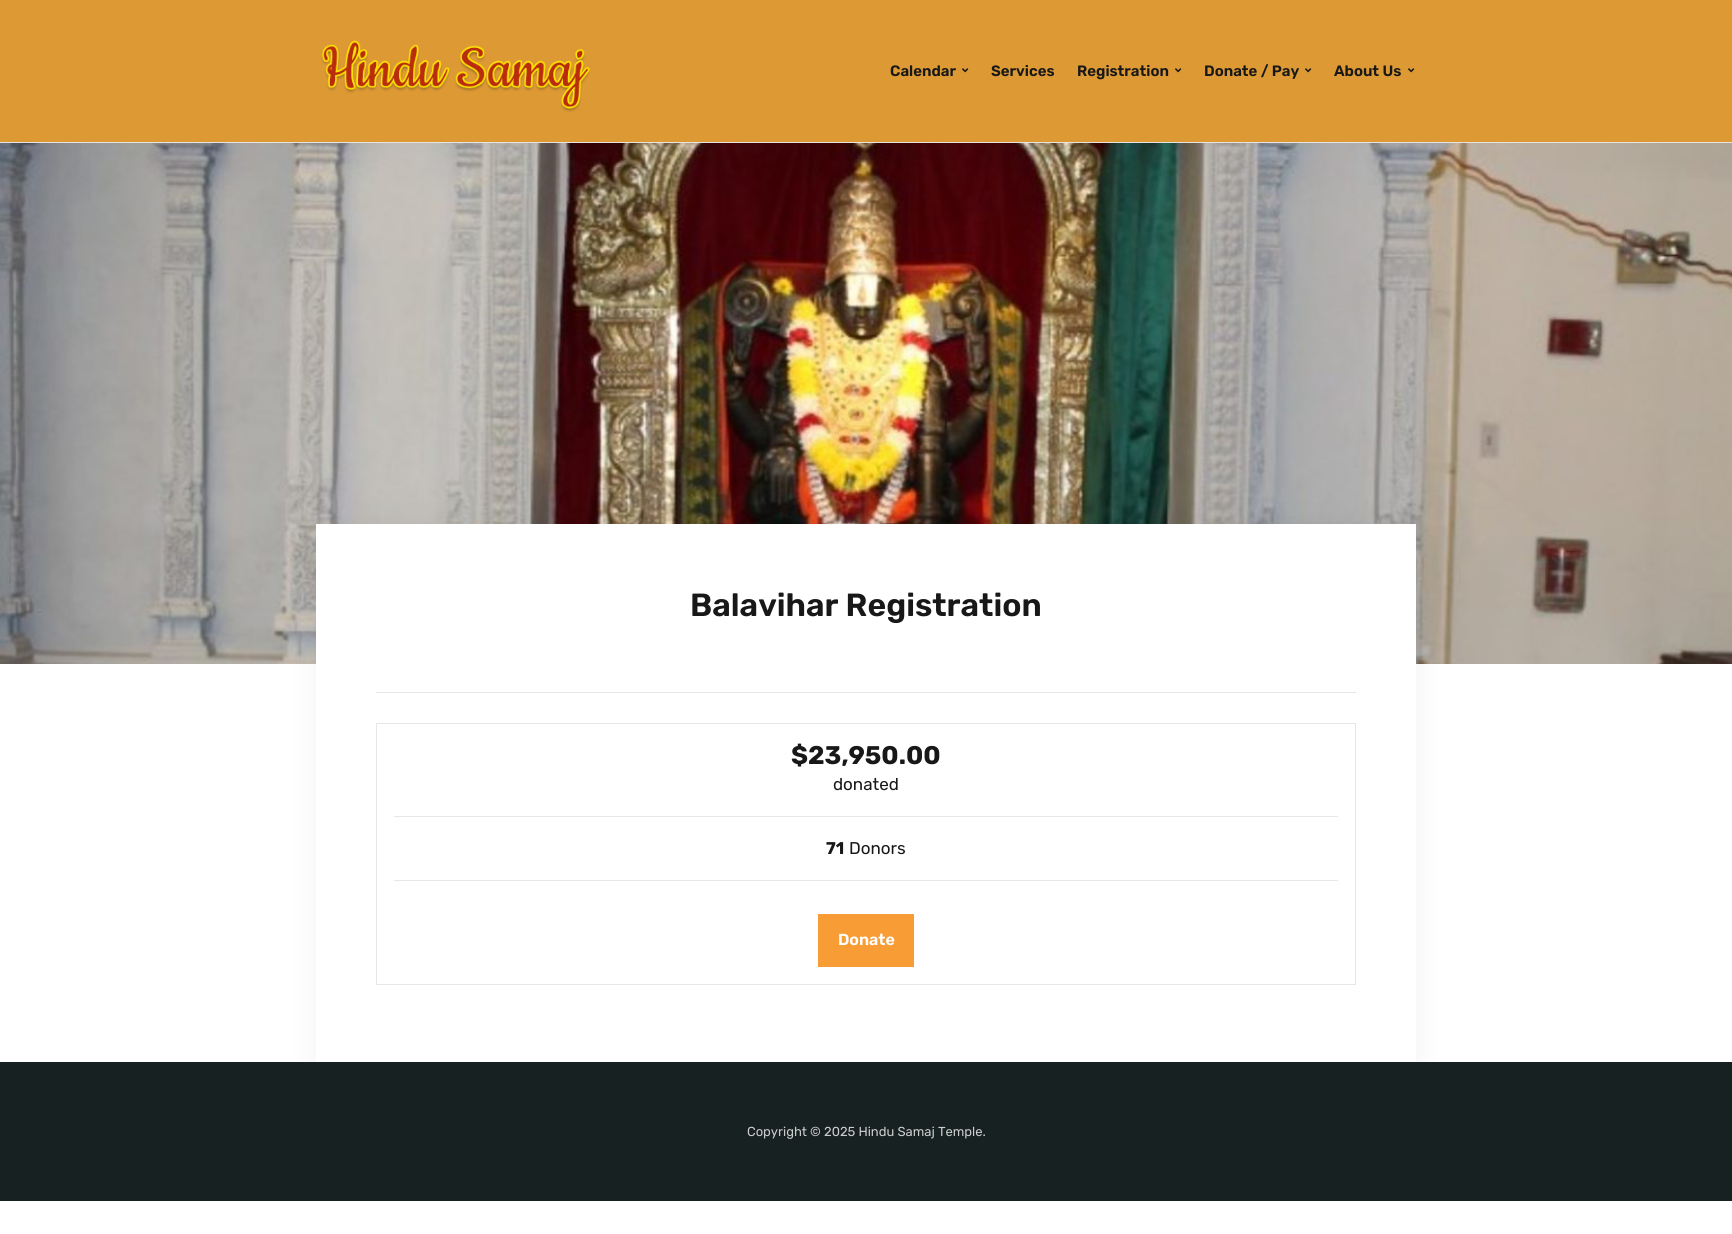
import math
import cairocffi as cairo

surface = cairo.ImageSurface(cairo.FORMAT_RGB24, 1732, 1234)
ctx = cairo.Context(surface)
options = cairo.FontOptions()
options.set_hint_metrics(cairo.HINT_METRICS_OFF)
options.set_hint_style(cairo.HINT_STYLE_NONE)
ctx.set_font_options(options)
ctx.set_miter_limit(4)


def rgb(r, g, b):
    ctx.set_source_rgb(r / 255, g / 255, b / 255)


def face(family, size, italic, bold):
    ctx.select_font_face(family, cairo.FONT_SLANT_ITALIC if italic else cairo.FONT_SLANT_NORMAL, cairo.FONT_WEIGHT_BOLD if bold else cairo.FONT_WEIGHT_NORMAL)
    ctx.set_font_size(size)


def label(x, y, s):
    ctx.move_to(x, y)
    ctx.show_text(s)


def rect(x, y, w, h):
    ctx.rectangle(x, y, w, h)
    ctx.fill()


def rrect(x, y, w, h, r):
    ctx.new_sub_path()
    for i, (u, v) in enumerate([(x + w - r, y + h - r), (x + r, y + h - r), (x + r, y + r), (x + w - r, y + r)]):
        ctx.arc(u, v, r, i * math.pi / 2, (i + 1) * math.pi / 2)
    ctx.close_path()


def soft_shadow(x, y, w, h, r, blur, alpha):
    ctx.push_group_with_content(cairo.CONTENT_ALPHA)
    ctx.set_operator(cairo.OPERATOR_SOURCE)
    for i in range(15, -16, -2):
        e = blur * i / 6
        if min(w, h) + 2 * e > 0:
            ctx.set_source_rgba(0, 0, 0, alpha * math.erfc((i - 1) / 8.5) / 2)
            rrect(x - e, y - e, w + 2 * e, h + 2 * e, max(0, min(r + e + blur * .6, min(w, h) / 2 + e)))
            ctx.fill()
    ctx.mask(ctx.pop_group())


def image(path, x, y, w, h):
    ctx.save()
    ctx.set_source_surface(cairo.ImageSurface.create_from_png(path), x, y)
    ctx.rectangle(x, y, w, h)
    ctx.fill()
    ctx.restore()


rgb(255, 255, 255)
ctx.paint()
rgb(221, 153, 52)
rect(0, 0, 1732, 142)
rgb(231, 227, 224)
rect(0, 142, 1732, 1)
image('image0.png', 321, 40, 269, 72)
face('Rubik SemiBold', 15, 0, 0)
rgb(24, 24, 24)
label(890, 76, 'Calendar')
image('image1.png', 962, 68, 7, 5)
label(991, 76, 'Services')
label(1077, 76, 'Registration')
image('image1.png', 1175, 68, 7, 5)
label(1204, 76, 'Donate / Pay')
image('image1.png', 1305, 68, 7, 5)
label(1334, 76, 'About Us')
image('image1.png', 1408, 68, 7, 5)
image('image2.png', 0, 143, 1732, 521)
rgb(0, 0, 0)
soft_shadow(316, 524, 1100, 538, 0, 15, 0.06)
rgb(255, 255, 255)
rect(316, 524, 1100, 538)
rgb(230, 230, 230)
rect(376, 692, 980, 1)
face('Rubik SemiBold', 32, 0, 0)
rgb(24, 24, 24)
label(690, 616, 'Balavihar Registration')
ctx.rectangle(376.5, 723.5, 979, 261)
rgb(230, 230, 230)
ctx.set_line_width(1)
ctx.stroke()
rect(394, 816, 944, 1)
face('Rubik', 25.5, 0, 1)
rgb(24, 24, 24)
label(791, 764, '$23,950.00')
face('Rubik', 17, 0, 0)
label(833, 790, 'donated')
rgb(230, 230, 230)
rect(394, 880, 944, 1)
face('Rubik', 17, 0, 1)
rgb(24, 24, 24)
label(826, 854, '71')
face('Rubik', 17, 0, 0)
label(849, 854, 'Donors')
rgb(248, 157, 53)
rect(818, 914, 96, 53)
face('Rubik SemiBold', 16, 0, 0)
rgb(255, 255, 255)
label(838, 945, 'Donate')
rgb(24, 33, 34)
rect(0, 1062, 1732, 139)
face('Rubik', 13, 0, 0)
rgb(204, 204, 204)
label(747, 1136, 'Copyright © 2025 Hindu Samaj Temple.')
surface.write_to_png('render.png')
